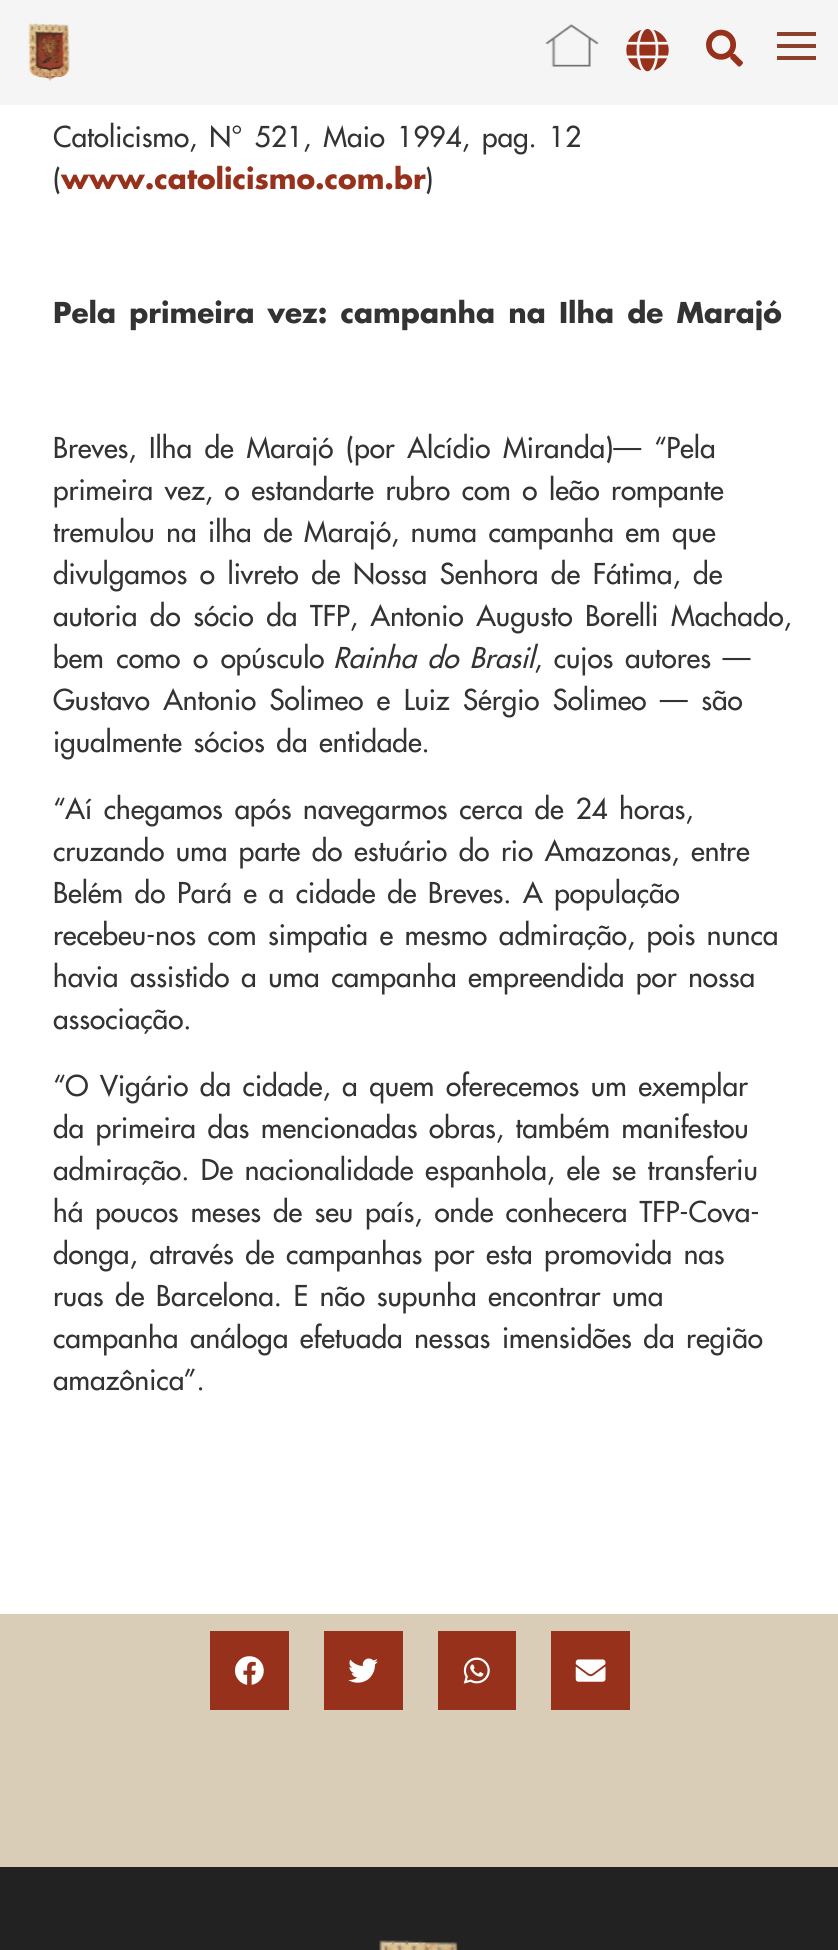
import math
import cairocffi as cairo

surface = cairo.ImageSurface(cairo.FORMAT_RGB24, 838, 1950)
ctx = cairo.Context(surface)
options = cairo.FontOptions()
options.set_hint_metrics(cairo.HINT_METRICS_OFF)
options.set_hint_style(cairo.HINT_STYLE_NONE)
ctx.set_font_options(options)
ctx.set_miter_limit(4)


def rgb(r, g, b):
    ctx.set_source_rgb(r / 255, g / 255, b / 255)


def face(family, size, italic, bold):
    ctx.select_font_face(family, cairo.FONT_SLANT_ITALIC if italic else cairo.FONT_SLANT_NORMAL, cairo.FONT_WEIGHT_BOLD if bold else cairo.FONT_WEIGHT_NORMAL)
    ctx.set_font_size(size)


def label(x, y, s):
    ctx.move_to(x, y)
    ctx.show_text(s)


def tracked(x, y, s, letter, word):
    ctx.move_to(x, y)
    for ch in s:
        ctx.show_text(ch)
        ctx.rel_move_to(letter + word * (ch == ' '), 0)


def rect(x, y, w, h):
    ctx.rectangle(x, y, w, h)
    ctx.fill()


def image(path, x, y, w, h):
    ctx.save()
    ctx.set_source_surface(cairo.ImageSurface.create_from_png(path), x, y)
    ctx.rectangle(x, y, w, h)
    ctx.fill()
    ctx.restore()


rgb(217, 205, 183)
ctx.paint()
rgb(245, 245, 245)
rect(0, 0, 838, 105)
image('image0.png', 28, 23, 42, 58)
image('image1.png', 545, 24, 54, 43)
image('image2.png', 626, 28, 43, 44)
image('image3.png', 706, 29, 37, 38)
rgb(139, 65, 44)
rect(777, 32, 39, 4)
rect(777, 56, 39, 4)
rect(777, 44, 39, 4)
rgb(255, 255, 255)
rect(0, 105, 838, 1509)
face('Futura', 28, 0, 0)
rgb(51, 51, 51)
tracked(53, 147, 'Catolicismo, N° 521, Maio 1994, pag. 12', 0, 4)
label(53, 189, '(')
face('Futura', 28, 0, 1)
rgb(151, 49, 27)
label(61, 189, 'www.catolicismo.com.br')
face('Futura', 28, 0, 0)
rgb(51, 51, 51)
label(425, 189, ')')
face('Futura', 28, 0, 1)
tracked(53, 323, 'Pela primeira vez: campanha na Ilha de Marajó', 0, 3.5)
face('Futura', 28, 0, 0)
tracked(53, 458, 'Breves, Ilha de Marajó (por Alcídio Miranda)— “Pela', 0, 4.5)
tracked(53, 500, 'primeira vez, o estandarte rubro com o leão rompante', 0, 3.5)
tracked(53, 542, 'tremulou na ilha de Marajó, numa campanha em que', 0, 3.5)
tracked(53, 584, 'divulgamos o livreto de Nossa Senhora de Fátima, de', 0, 4.5)
tracked(53, 626, 'autoria do sócio da TFP, Antonio Augusto Borelli Machado,', 0, 4.5)
tracked(53, 668, 'bem como o opúsculo', 0, 4.5)
face('Futura', 28, 1, 0)
tracked(333, 668, 'Rainha do Brasil', 0, 3.5)
face('Futura', 28, 0, 0)
tracked(534, 668, ', cujos autores —', 0, 3.5)
tracked(53, 710, 'Gustavo Antonio Solimeo e Luiz Sérgio Solimeo — são', 0, 5.25)
tracked(53, 752, 'igualmente sócios da entidade.', 0, 3.5)
tracked(53, 819, '“Aí chegamos após navegarmos cerca de 24 horas,', 0, 3.5)
tracked(53, 861, 'cruzando uma parte do estuário do rio Amazonas, entre', 0, 3.5)
tracked(53, 903, 'Belém do Pará e a cidade de Breves. A população', 0, 3.5)
tracked(53, 945, 'recebeu-nos com simpatia e mesmo admiração, pois nunca', 0, 3.5)
tracked(53, 987, 'havia assistido a uma campanha empreendida por nossa', 0, 3.5)
label(53, 1029, 'associação.')
tracked(53, 1096, '“O Vigário da cidade, a quem oferecemos um exemplar', 0, 3.5)
tracked(53, 1138, 'da primeira das mencionadas obras, também manifestou', 0, 3.5)
tracked(53, 1180, 'admiração. De nacionalidade espanhola, ele se transferiu', 0, 3.5)
tracked(53, 1222, 'há poucos meses de seu país, onde conhecera TFP-Cova-', 0, 4)
tracked(53, 1264, 'donga, através de campanhas por esta promovida nas', 0, 3.5)
tracked(53, 1306, 'ruas de Barcelona. E não supunha encontrar uma', 0, 3.5)
tracked(53, 1348, 'campanha análoga efetuada nessas imensidões da região', 0, 3.5)
label(53, 1390, 'amazônica”.')
rgb(151, 49, 27)
rect(210, 1631, 79, 79)
image('image4.png', 235, 1656, 29, 29)
rect(324, 1631, 79, 79)
image('image5.png', 348, 1658, 30, 25)
rect(438, 1631, 78, 79)
image('image6.png', 463, 1657, 27, 27)
rect(551, 1631, 79, 79)
image('image7.png', 575, 1659, 31, 23)
rgb(34, 34, 34)
rect(0, 1867, 838, 83)
image('image8.png', 379, 1940, 79, 10)
surface.write_to_png('render.png')
